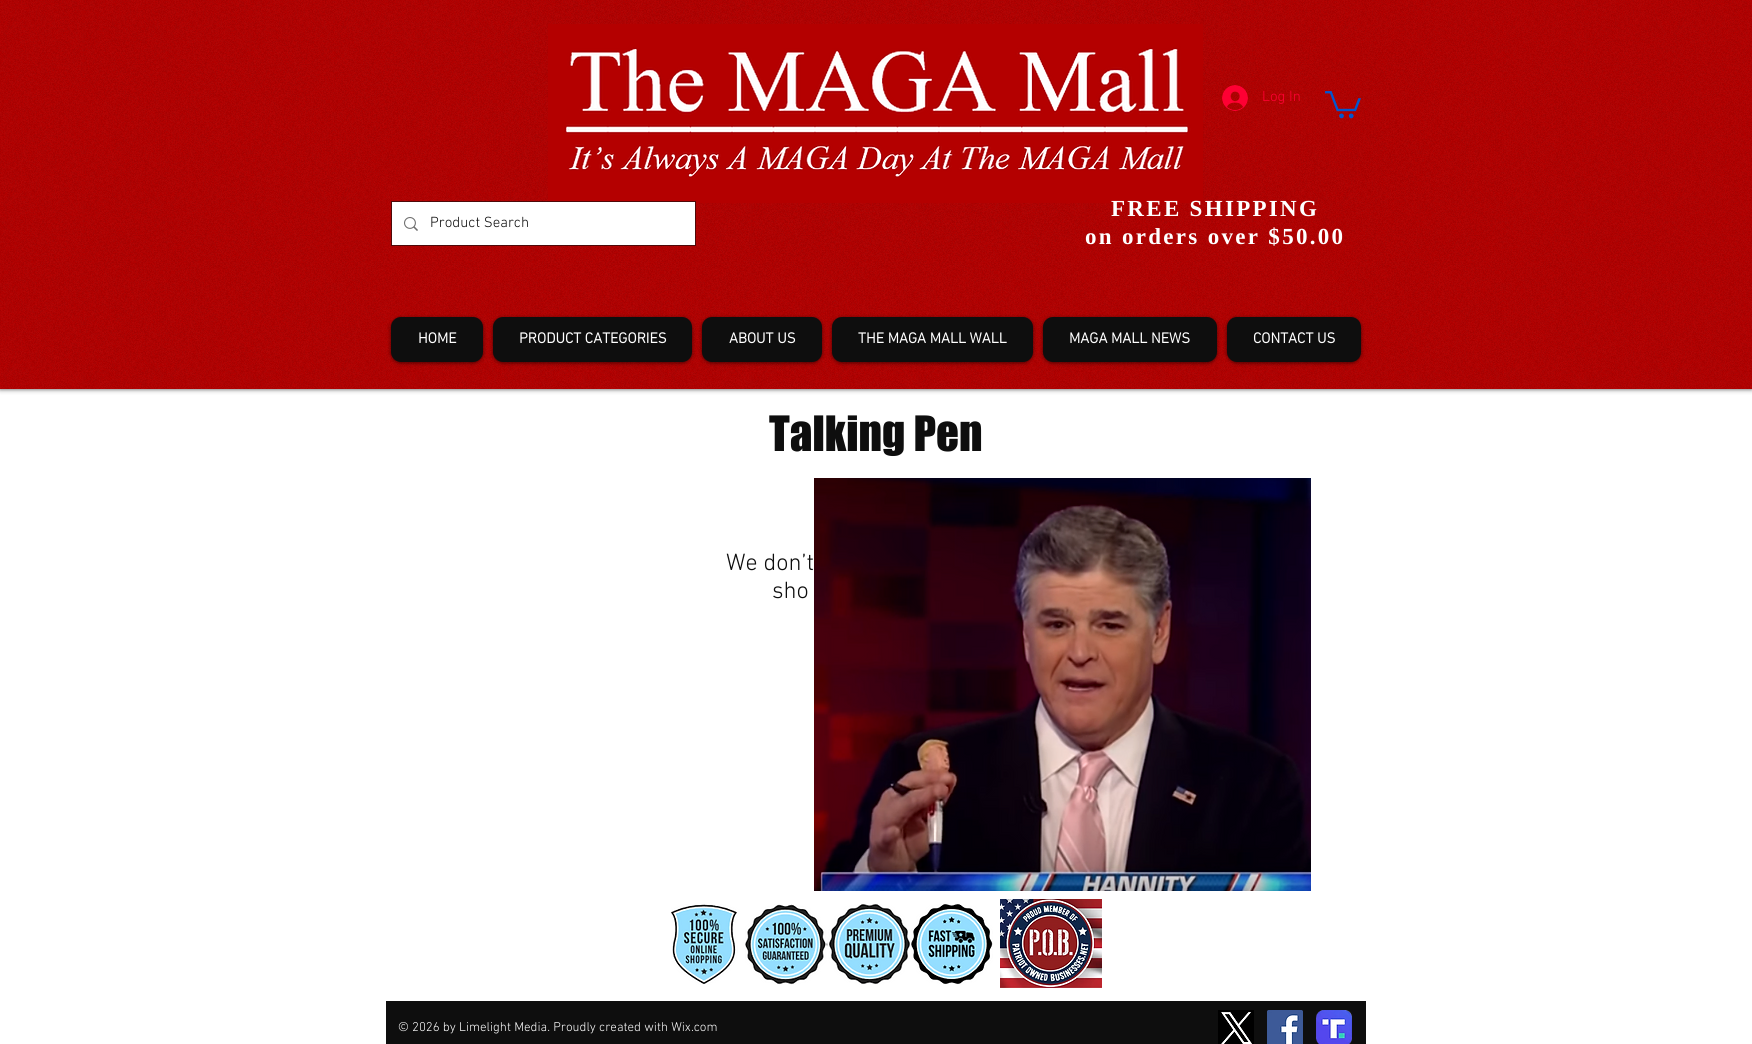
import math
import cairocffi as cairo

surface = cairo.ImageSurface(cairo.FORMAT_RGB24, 1752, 1044)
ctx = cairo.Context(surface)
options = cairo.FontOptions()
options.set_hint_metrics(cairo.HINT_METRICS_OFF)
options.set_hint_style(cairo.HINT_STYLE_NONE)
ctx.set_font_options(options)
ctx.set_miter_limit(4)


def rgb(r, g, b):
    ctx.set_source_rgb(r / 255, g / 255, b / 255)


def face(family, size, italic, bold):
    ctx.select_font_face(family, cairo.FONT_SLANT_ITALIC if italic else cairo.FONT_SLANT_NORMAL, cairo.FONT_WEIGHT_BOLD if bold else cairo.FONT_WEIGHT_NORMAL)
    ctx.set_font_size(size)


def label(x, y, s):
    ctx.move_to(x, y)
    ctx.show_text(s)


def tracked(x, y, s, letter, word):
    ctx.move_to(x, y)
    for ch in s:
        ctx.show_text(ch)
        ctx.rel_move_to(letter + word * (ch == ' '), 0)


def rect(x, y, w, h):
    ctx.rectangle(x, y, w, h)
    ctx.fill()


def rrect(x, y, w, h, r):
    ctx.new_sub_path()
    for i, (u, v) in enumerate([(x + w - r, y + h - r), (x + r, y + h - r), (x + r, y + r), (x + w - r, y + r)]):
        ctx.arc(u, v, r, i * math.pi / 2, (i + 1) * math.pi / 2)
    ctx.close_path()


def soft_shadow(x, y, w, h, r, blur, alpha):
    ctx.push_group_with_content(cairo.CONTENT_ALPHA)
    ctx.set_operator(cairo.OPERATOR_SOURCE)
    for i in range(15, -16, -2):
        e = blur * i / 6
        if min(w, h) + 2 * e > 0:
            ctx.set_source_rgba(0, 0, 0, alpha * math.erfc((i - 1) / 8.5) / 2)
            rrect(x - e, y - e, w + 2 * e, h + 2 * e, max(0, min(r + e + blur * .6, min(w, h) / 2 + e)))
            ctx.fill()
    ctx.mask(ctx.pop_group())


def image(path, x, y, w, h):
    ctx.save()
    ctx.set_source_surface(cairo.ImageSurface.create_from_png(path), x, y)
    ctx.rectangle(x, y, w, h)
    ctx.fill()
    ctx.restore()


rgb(255, 255, 255)
ctx.paint()
rgb(0, 0, 0)
soft_shadow(0, -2, 1752, 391, 0, 2.5, 0.7)
rgb(178, 0, 0)
rect(0, 0, 1752, 389)
image('image0.png', 0, 0, 1752, 389)
image('image1.png', 548, 24, 655, 179)
image('image2.png', 1222, 85, 26, 26)
face('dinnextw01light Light', 15, 0, 0)
rgb(255, 0, 51)
label(1262, 101, 'Log In')
image('image3.png', 1325, 91, 36, 28)
ctx.rectangle(391.5, 201.5, 304, 44)
ctx.set_source_rgba(0.055, 0.055, 0.055, 0.6)
ctx.set_line_width(1)
ctx.stroke()
rgb(255, 255, 255)
rect(392, 202, 303, 43)
image('image4.png', 404, 217, 14, 14)
rgb(14, 14, 14)
label(430, 227, 'Product Search')
face('Liberation Serif', 23, 0, 1)
rgb(255, 255, 255)
tracked(1111, 216, 'FREE SHIPPING', 2.3, 0)
tracked(1085, 244, 'on orders over $50.00', 2.3, 0)
rgb(0, 0, 0)
soft_shadow(391, 318, 92, 45, 10, 2, 0.6)
rgb(14, 14, 14)
rrect(391, 317, 92, 45, 10)
ctx.fill()
face('dinnextw01light', 15, 0, 1)
rgb(255, 255, 255)
label(418, 343, 'HOME')
rgb(0, 0, 0)
soft_shadow(493, 318, 199, 45, 10, 2, 0.6)
rgb(14, 14, 14)
rrect(493, 317, 199, 45, 10)
ctx.fill()
rgb(255, 255, 255)
label(519, 343, 'PRODUCT CATEGORIES')
rgb(0, 0, 0)
soft_shadow(702, 318, 120, 45, 10, 2, 0.6)
rgb(14, 14, 14)
rrect(702, 317, 120, 45, 10)
ctx.fill()
rgb(255, 255, 255)
label(729, 343, 'ABOUT US')
rgb(0, 0, 0)
soft_shadow(832, 318, 201, 45, 10, 2, 0.6)
rgb(14, 14, 14)
rrect(832, 317, 201, 45, 10)
ctx.fill()
rgb(255, 255, 255)
label(858, 343, 'THE MAGA MALL WALL')
rgb(0, 0, 0)
soft_shadow(1043, 318, 174, 45, 10, 2, 0.6)
rgb(14, 14, 14)
rrect(1043, 317, 174, 45, 10)
ctx.fill()
rgb(255, 255, 255)
label(1069, 343, 'MAGA MALL NEWS')
rgb(0, 0, 0)
soft_shadow(1227, 318, 134, 45, 10, 2, 0.6)
rgb(14, 14, 14)
rrect(1227, 317, 134, 45, 10)
ctx.fill()
rgb(255, 255, 255)
label(1253, 343, 'CONTACT US')
face('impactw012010', 45, 0, 0)
rgb(14, 14, 14)
label(769, 451, 'Talking Pen')
face('dinnextw01light Light', 24, 0, 0)
label(726, 570, 'We don’t')
label(772, 598, 'sho')
image('image5.png', 814, 478, 497, 413)
image('image6.png', 671, 904, 322, 81)
image('image7.png', 1000, 899, 102, 89)
rect(386, 1001, 980, 43)
face('dinnextw01light Light', 13, 0, 0)
rgb(255, 255, 255)
label(398, 1031, '© 2026 by Limelight Media. Proudly created with Wix.com')
image('image8.png', 1218, 1010, 36, 34)
image('image9.png', 1267, 1010, 36, 34)
image('image10.png', 1316, 1010, 36, 34)
surface.write_to_png('render.png')
